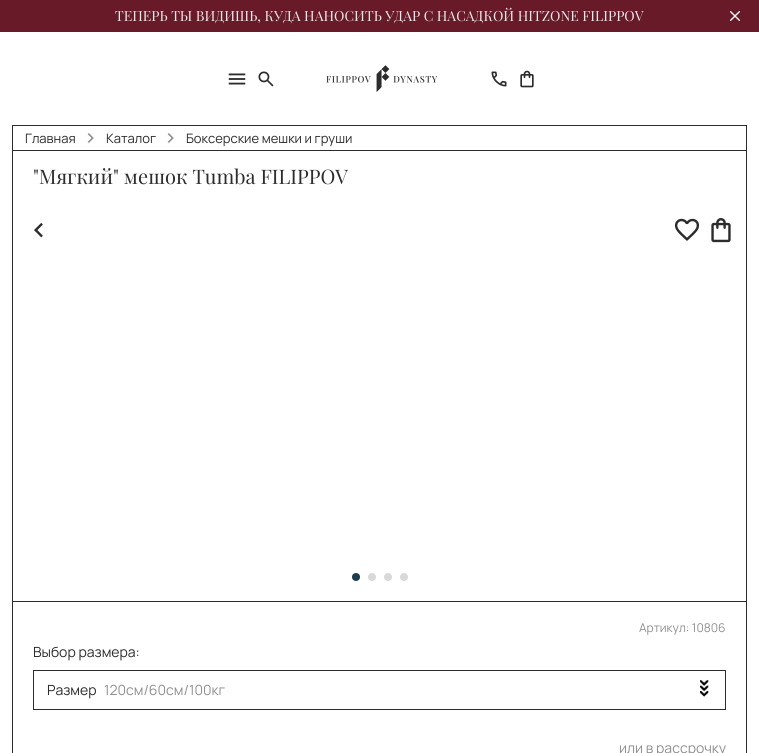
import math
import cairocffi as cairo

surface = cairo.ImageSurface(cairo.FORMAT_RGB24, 759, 753)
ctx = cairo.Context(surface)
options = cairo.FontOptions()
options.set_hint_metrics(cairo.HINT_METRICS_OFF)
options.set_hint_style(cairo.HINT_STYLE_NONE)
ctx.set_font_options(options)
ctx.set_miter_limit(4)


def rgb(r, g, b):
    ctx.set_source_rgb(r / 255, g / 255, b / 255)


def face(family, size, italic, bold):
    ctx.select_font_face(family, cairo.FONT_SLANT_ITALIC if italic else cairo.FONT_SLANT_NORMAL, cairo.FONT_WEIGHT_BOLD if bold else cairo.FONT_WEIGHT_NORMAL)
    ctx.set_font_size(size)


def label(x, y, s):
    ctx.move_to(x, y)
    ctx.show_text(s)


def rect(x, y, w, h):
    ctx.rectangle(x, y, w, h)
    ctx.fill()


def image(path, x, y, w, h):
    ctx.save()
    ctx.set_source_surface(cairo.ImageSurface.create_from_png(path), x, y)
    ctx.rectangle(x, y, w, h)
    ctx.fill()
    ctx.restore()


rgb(255, 255, 255)
ctx.paint()
rgb(105, 26, 40)
rect(0, 0, 759, 32)
face('Playfair Display', 14, 0, 0)
rgb(236, 236, 236)
label(115, 21, 'ТЕПЕРЬ ТЫ ВИДИШЬ, КУДА НАНОСИТЬ УДАР С НАСАДКОЙ HITZONE FILIPPOV')
image('image0.png', 730, 11, 10, 10)
image('image1.png', 228, 73, 18, 12)
image('image2.png', 258, 71, 16, 16)
image('image3.png', 326, 65, 111, 27)
image('image4.png', 491, 71, 16, 16)
image('image5.png', 520, 70, 14, 18)
ctx.rectangle(12.5, 125.5, 734, 25)
rgb(44, 44, 44)
ctx.set_line_width(1)
ctx.stroke()
face('Manrope', 13, 0, 0)
label(25, 143, 'Главная')
image('image6.png', 87, 133, 7, 10)
label(106, 143, 'Каталог')
image('image6.png', 167, 133, 7, 10)
label(186, 143, 'Боксерские мешки и груши')
rect(746, 151, 1, 602)
rect(12, 151, 1, 602)
face('Playfair Display', 20, 0, 0)
label(33, 184, '"Мягкий" мешок Tumba FILIPPOV')
image('image7.png', 34, 222, 9, 16)
image('image8.png', 674, 218, 26, 23)
image('image9.png', 711, 218, 20, 25)
rgb(30, 61, 79)
ctx.arc(356, 577, 4, 0, 2 * math.pi)
ctx.fill()
rgb(217, 217, 217)
ctx.arc(372, 577, 4, 0, 2 * math.pi)
ctx.fill()
ctx.arc(388, 577, 4, 0, 2 * math.pi)
ctx.fill()
ctx.arc(404, 577, 4, 0, 2 * math.pi)
ctx.fill()
rgb(44, 44, 44)
rect(13, 601, 733, 1)
face('Manrope', 12, 0, 0)
rgb(144, 144, 144)
label(639, 632, 'Артикул: 10806')
face('Manrope', 14, 0, 0)
rgb(44, 44, 44)
label(33, 657, 'Выбор размера:')
ctx.rectangle(33.5, 670.5, 692, 39)
ctx.stroke()
label(47, 695, 'Размер')
rgb(144, 144, 144)
label(104, 695, '120см/60см/100кг')
image('image10.png', 700, 680, 9, 17)
label(619, 753, 'или в рассрочку')
surface.write_to_png('render.png')
